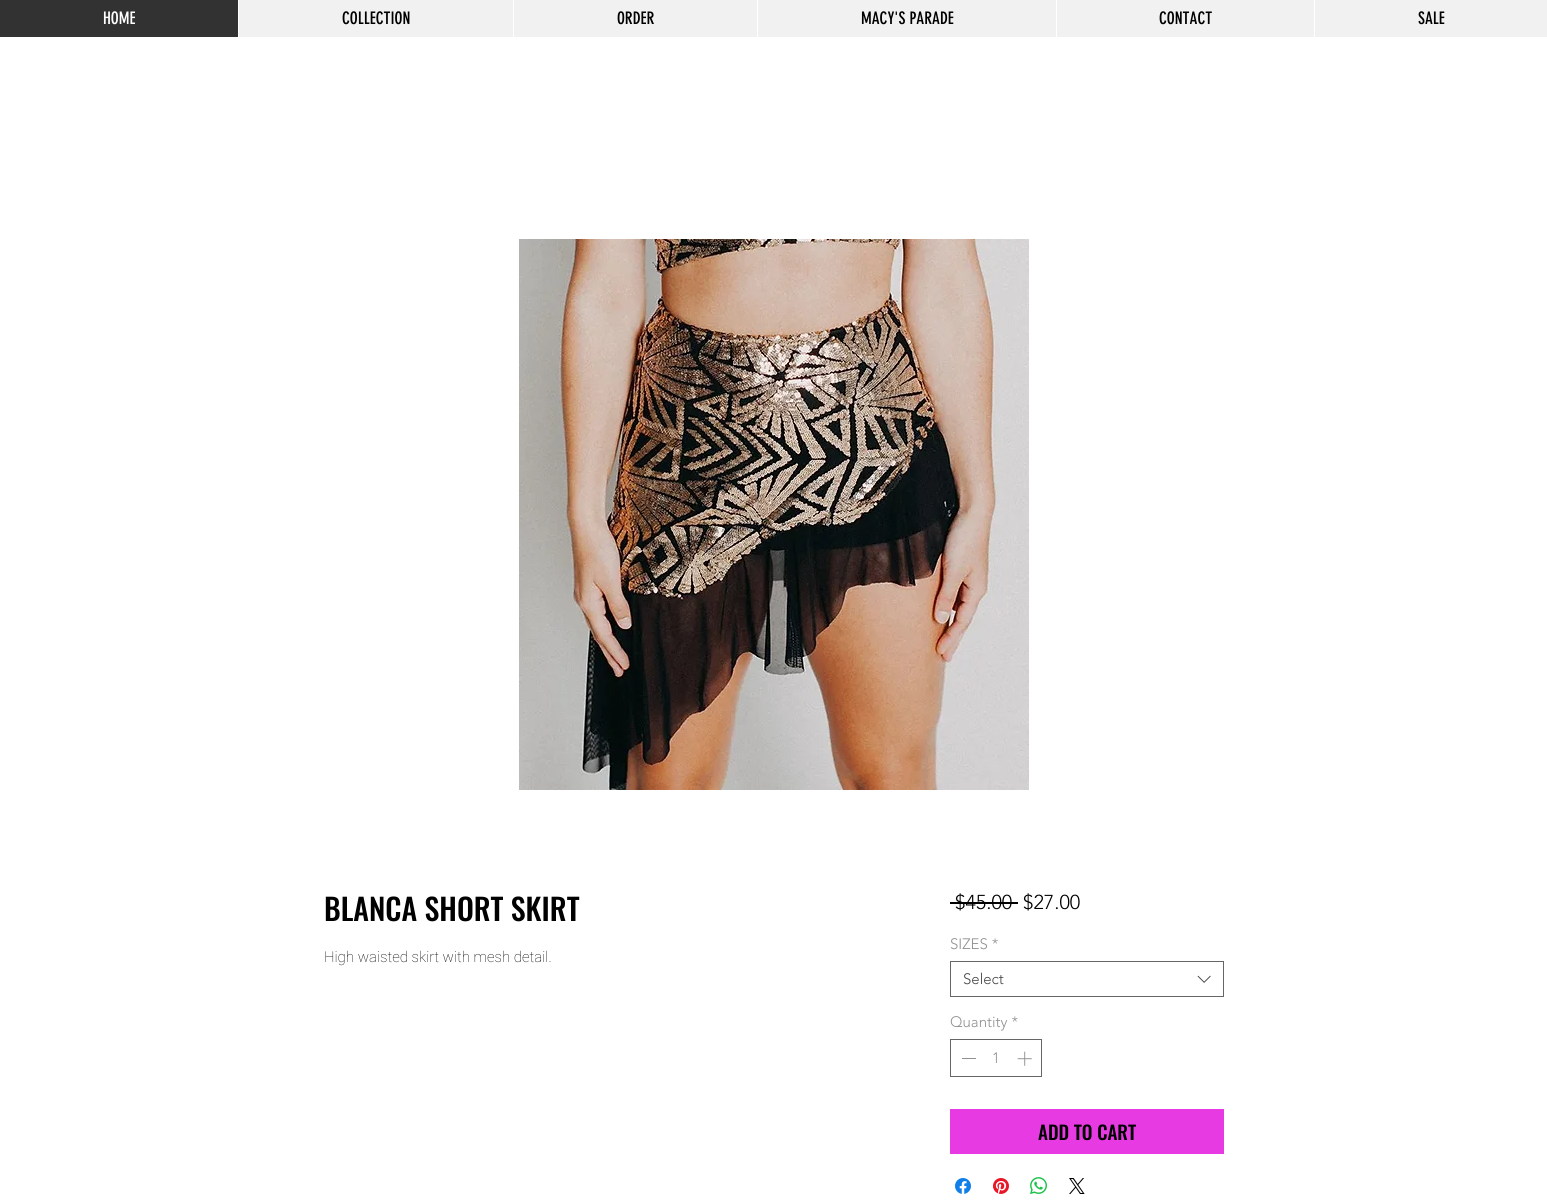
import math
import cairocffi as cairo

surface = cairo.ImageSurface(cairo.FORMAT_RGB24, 1547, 1200)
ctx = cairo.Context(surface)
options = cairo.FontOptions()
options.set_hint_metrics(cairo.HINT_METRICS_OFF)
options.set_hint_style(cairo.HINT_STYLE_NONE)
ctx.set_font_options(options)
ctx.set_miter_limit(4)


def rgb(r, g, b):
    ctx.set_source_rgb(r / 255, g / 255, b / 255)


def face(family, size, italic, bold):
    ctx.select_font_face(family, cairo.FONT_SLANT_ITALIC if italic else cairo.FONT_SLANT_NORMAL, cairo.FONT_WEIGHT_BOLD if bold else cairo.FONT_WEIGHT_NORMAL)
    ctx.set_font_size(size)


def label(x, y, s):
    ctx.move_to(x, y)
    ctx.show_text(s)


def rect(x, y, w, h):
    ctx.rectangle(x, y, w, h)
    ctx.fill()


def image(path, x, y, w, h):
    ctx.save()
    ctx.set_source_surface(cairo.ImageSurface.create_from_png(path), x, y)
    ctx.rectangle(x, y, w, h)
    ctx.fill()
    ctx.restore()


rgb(255, 255, 255)
ctx.paint()
rgb(241, 241, 241)
rect(239, 0, 1308, 37)
rgb(50, 50, 50)
rect(0, 0, 238, 37)
face('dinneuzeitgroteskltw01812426', 17, 0, 0)
rgb(255, 255, 255)
label(103, 24, 'HOME')
rgb(0, 0, 0)
label(342, 24, 'COLLECTION')
rgb(255, 255, 255)
rect(513, 0, 1, 37)
rgb(0, 0, 0)
label(617, 24, 'ORDER')
rgb(255, 255, 255)
rect(757, 0, 1, 37)
rgb(0, 0, 0)
label(861, 24, 'MACY\'S PARADE')
rgb(255, 255, 255)
rect(1056, 0, 1, 37)
rgb(0, 0, 0)
label(1159, 24, 'CONTACT')
rgb(255, 255, 255)
rect(1314, 0, 1, 37)
rgb(0, 0, 0)
label(1418, 24, 'SALE')
image('image0.png', 519, 239, 510, 551)
face('Oswald Medium', 30, 0, 0)
label(324, 921, 'BLANCA SHORT SKIRT')
face('Roboto Thin', 15, 0, 0)
label(324, 962, 'High waisted skirt with mesh detail.')
face('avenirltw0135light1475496 Light', 20, 0, 0)
label(955, 909, '$45.00')
rect(950, 902, 68, 2)
label(1023, 909, '$27.00')
face('avenirltw0135light1475496 Light', 15, 0, 0)
rgb(144, 144, 144)
label(950, 949, 'SIZES *')
ctx.rectangle(950.5, 961.5, 273, 35)
rgb(102, 102, 102)
ctx.set_line_width(1)
ctx.stroke()
rgb(68, 68, 68)
label(963, 984, 'Select')
image('image1.png', 1197, 975, 14, 8)
rgb(144, 144, 144)
label(950, 1027, 'Quantity *')
ctx.rectangle(950.5, 1039.5, 91, 37)
rgb(102, 102, 102)
ctx.stroke()
rgb(144, 144, 144)
rect(962, 1058, 14, 1)
label(992, 1063, '1')
image('image2.png', 1017, 1051, 15, 15)
rgb(232, 58, 226)
rect(950, 1109, 274, 45)
face('Oswald Medium', 19, 0, 0)
rgb(0, 0, 0)
label(1038, 1140, 'ADD TO CART')
image('image3.png', 955, 1178, 16, 16)
image('image4.png', 993, 1178, 16, 16)
image('image5.png', 1030, 1177, 17, 17)
image('image6.png', 1069, 1178, 16, 16)
surface.write_to_png('render.png')
